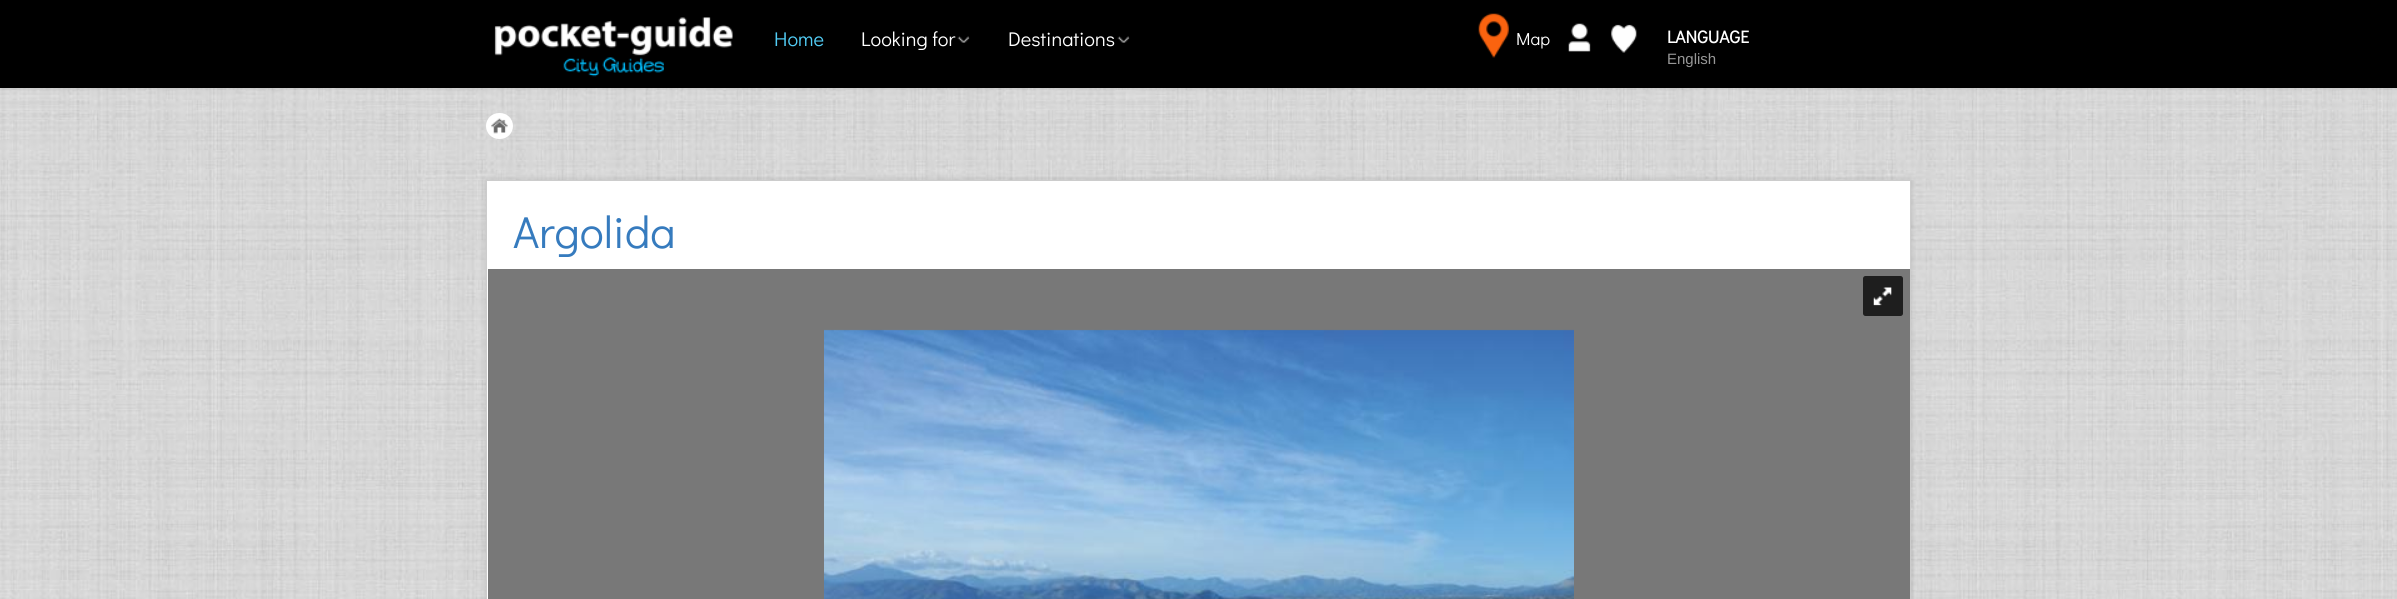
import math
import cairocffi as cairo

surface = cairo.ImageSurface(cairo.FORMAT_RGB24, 2397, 599)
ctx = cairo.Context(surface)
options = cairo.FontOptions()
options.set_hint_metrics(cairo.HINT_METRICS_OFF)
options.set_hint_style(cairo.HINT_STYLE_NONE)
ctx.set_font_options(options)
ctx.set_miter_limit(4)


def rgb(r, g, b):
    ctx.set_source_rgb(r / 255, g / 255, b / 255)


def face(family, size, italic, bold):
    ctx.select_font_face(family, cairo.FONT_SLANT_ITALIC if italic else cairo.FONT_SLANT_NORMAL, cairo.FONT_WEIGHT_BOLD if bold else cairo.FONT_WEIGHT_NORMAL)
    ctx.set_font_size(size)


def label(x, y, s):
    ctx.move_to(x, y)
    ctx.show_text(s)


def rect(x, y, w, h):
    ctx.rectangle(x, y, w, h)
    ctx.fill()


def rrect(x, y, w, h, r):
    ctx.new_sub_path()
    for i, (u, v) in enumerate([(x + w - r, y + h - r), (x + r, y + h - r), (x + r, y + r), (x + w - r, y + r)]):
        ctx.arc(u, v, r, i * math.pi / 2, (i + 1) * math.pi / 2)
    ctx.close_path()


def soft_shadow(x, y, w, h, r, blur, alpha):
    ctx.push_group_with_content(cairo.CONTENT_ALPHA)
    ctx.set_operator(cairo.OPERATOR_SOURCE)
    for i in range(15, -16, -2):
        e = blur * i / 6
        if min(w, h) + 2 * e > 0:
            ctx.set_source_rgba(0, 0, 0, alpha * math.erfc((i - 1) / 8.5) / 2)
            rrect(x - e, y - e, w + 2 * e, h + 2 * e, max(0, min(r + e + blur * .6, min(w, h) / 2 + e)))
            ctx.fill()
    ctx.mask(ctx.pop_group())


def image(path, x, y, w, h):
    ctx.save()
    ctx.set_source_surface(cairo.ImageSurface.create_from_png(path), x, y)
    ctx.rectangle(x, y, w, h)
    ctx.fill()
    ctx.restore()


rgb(255, 255, 255)
ctx.paint()
image('image0.png', 0, 88, 2397, 511)
rgb(0, 0, 0)
soft_shadow(0, 0, 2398, 88, 0, 3, 0.13)
rgb(0, 0, 0)
rect(0, 0, 2397, 88)
image('image1.png', 494, 17, 239, 60)
face('Didact Gothic', 20, 0, 0)
rgb(82, 206, 247)
label(774, 46, 'Home')
rgb(255, 255, 255)
label(861, 46, 'Looking for')
image('image2.png', 957, 36, 13, 7)
label(1008, 46, 'Destinations')
image('image2.png', 1117, 36, 13, 7)
image('image3.png', 1478, 13, 31, 45)
face('Didact Gothic', 17.5, 0, 0)
label(1516, 45, 'Map')
image('image4.png', 1568, 23, 23, 29)
image('image5.png', 1611, 24, 26, 29)
face('Didact Gothic', 17.5, 0, 1)
label(1667, 43, 'LANGUAGE')
face('Liberation Sans', 15, 0, 0)
rgb(151, 151, 151)
label(1667, 64, 'English')
rgb(255, 255, 255)
rrect(486, 113, 27, 26, 13)
ctx.fill()
image('image6.png', 491, 118, 17, 16)
rgb(0, 0, 0)
soft_shadow(486, 180, 1425, 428, 0, 3, 0.13)
rgb(255, 255, 255)
ctx.rectangle(486.5, 180.5, 1424, 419)
ctx.fill_preserve()
rgb(204, 204, 204)
ctx.set_line_width(1)
ctx.stroke()
face('Didact Gothic', 45, 0, 0)
rgb(54, 123, 190)
label(513, 248, 'Argolida')
rgb(120, 120, 120)
rect(488, 269, 1422, 330)
rgb(30, 30, 30)
rrect(1863, 276, 40, 40, 2.5)
ctx.fill()
image('image7.png', 1873, 287, 19, 19)
image('image8.png', 824, 329, 750, 270)
surface.write_to_png('render.png')
